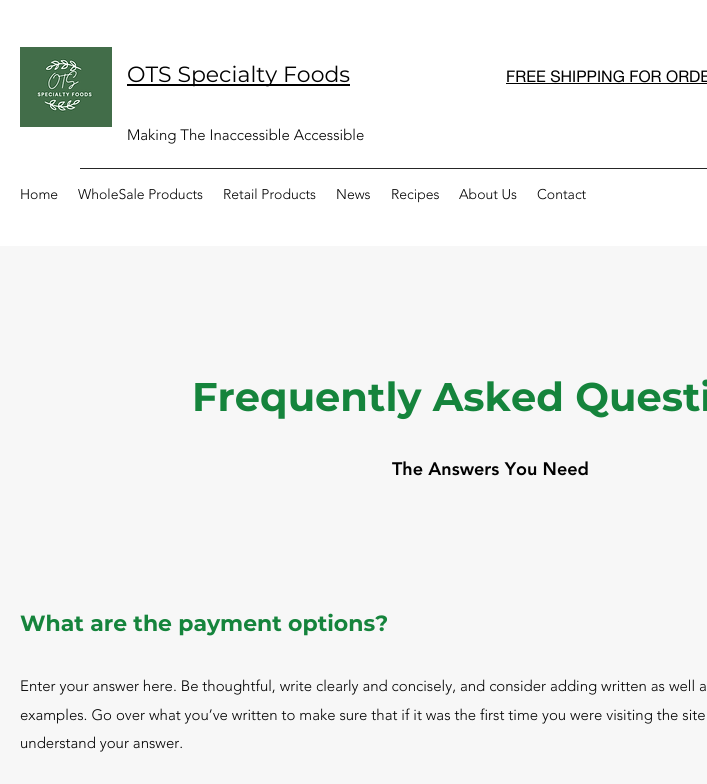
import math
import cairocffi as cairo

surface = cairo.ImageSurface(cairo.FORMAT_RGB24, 707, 784)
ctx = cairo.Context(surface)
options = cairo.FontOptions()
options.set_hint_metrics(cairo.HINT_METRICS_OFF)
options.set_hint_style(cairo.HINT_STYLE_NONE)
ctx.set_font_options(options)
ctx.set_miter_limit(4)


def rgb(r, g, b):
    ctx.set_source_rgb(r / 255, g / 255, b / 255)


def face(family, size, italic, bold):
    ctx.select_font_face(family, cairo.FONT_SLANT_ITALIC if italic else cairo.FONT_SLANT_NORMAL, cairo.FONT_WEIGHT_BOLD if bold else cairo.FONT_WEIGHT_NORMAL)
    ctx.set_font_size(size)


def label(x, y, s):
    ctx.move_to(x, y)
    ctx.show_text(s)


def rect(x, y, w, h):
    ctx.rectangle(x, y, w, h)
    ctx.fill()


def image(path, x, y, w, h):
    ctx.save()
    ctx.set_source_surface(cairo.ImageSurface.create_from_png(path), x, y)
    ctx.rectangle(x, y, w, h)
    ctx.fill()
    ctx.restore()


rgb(255, 255, 255)
ctx.paint()
image('image0.png', 20, 47, 92, 80)
rgb(0, 0, 0)
rect(127, 84, 223, 2)
face('Montserrat', 22, 0, 0)
label(127, 82, 'OTS Specialty Foods')
face('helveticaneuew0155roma', 16, 0, 0)
label(506, 82, 'FREE SHIPPING FOR ORDE')
rect(506, 83, 201, 1)
face('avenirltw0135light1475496 Light', 15, 0, 0)
label(127, 140, 'Making The Inaccessible Accessible')
rgb(38, 38, 38)
rect(80, 168, 627, 1)
face('avenirltw0135light1475496 Light', 14, 0, 0)
rgb(0, 0, 0)
label(20, 199, 'Home')
label(78, 199, 'WholeSale Products')
label(223, 199, 'Retail Products')
label(336, 199, 'News')
label(391, 199, 'Recipes')
label(459, 199, 'About Us')
label(537, 199, 'Contact')
rgb(247, 247, 247)
rect(0, 246, 707, 538)
face('Montserrat', 40, 0, 1)
rgb(21, 132, 60)
label(192, 411, 'Frequently Asked Questi')
face('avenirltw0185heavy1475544 Black', 18, 0, 0)
rgb(0, 0, 0)
label(392, 475, 'The Answers You Need')
face('Montserrat', 22, 0, 1)
rgb(21, 132, 60)
label(20, 631, 'What are the payment options?')
face('avenirltw0135light1475496 Light', 15, 0, 0)
rgb(0, 0, 0)
label(20, 691, 'Enter your answer here. Be thoughtful, write clearly and concisely, and consider adding written as well a')
label(20, 720, 'examples. Go over what you’ve written to make sure that if it was the first time you were visiting the site')
label(20, 748, 'understand your answer.')
surface.write_to_png('render.png')
